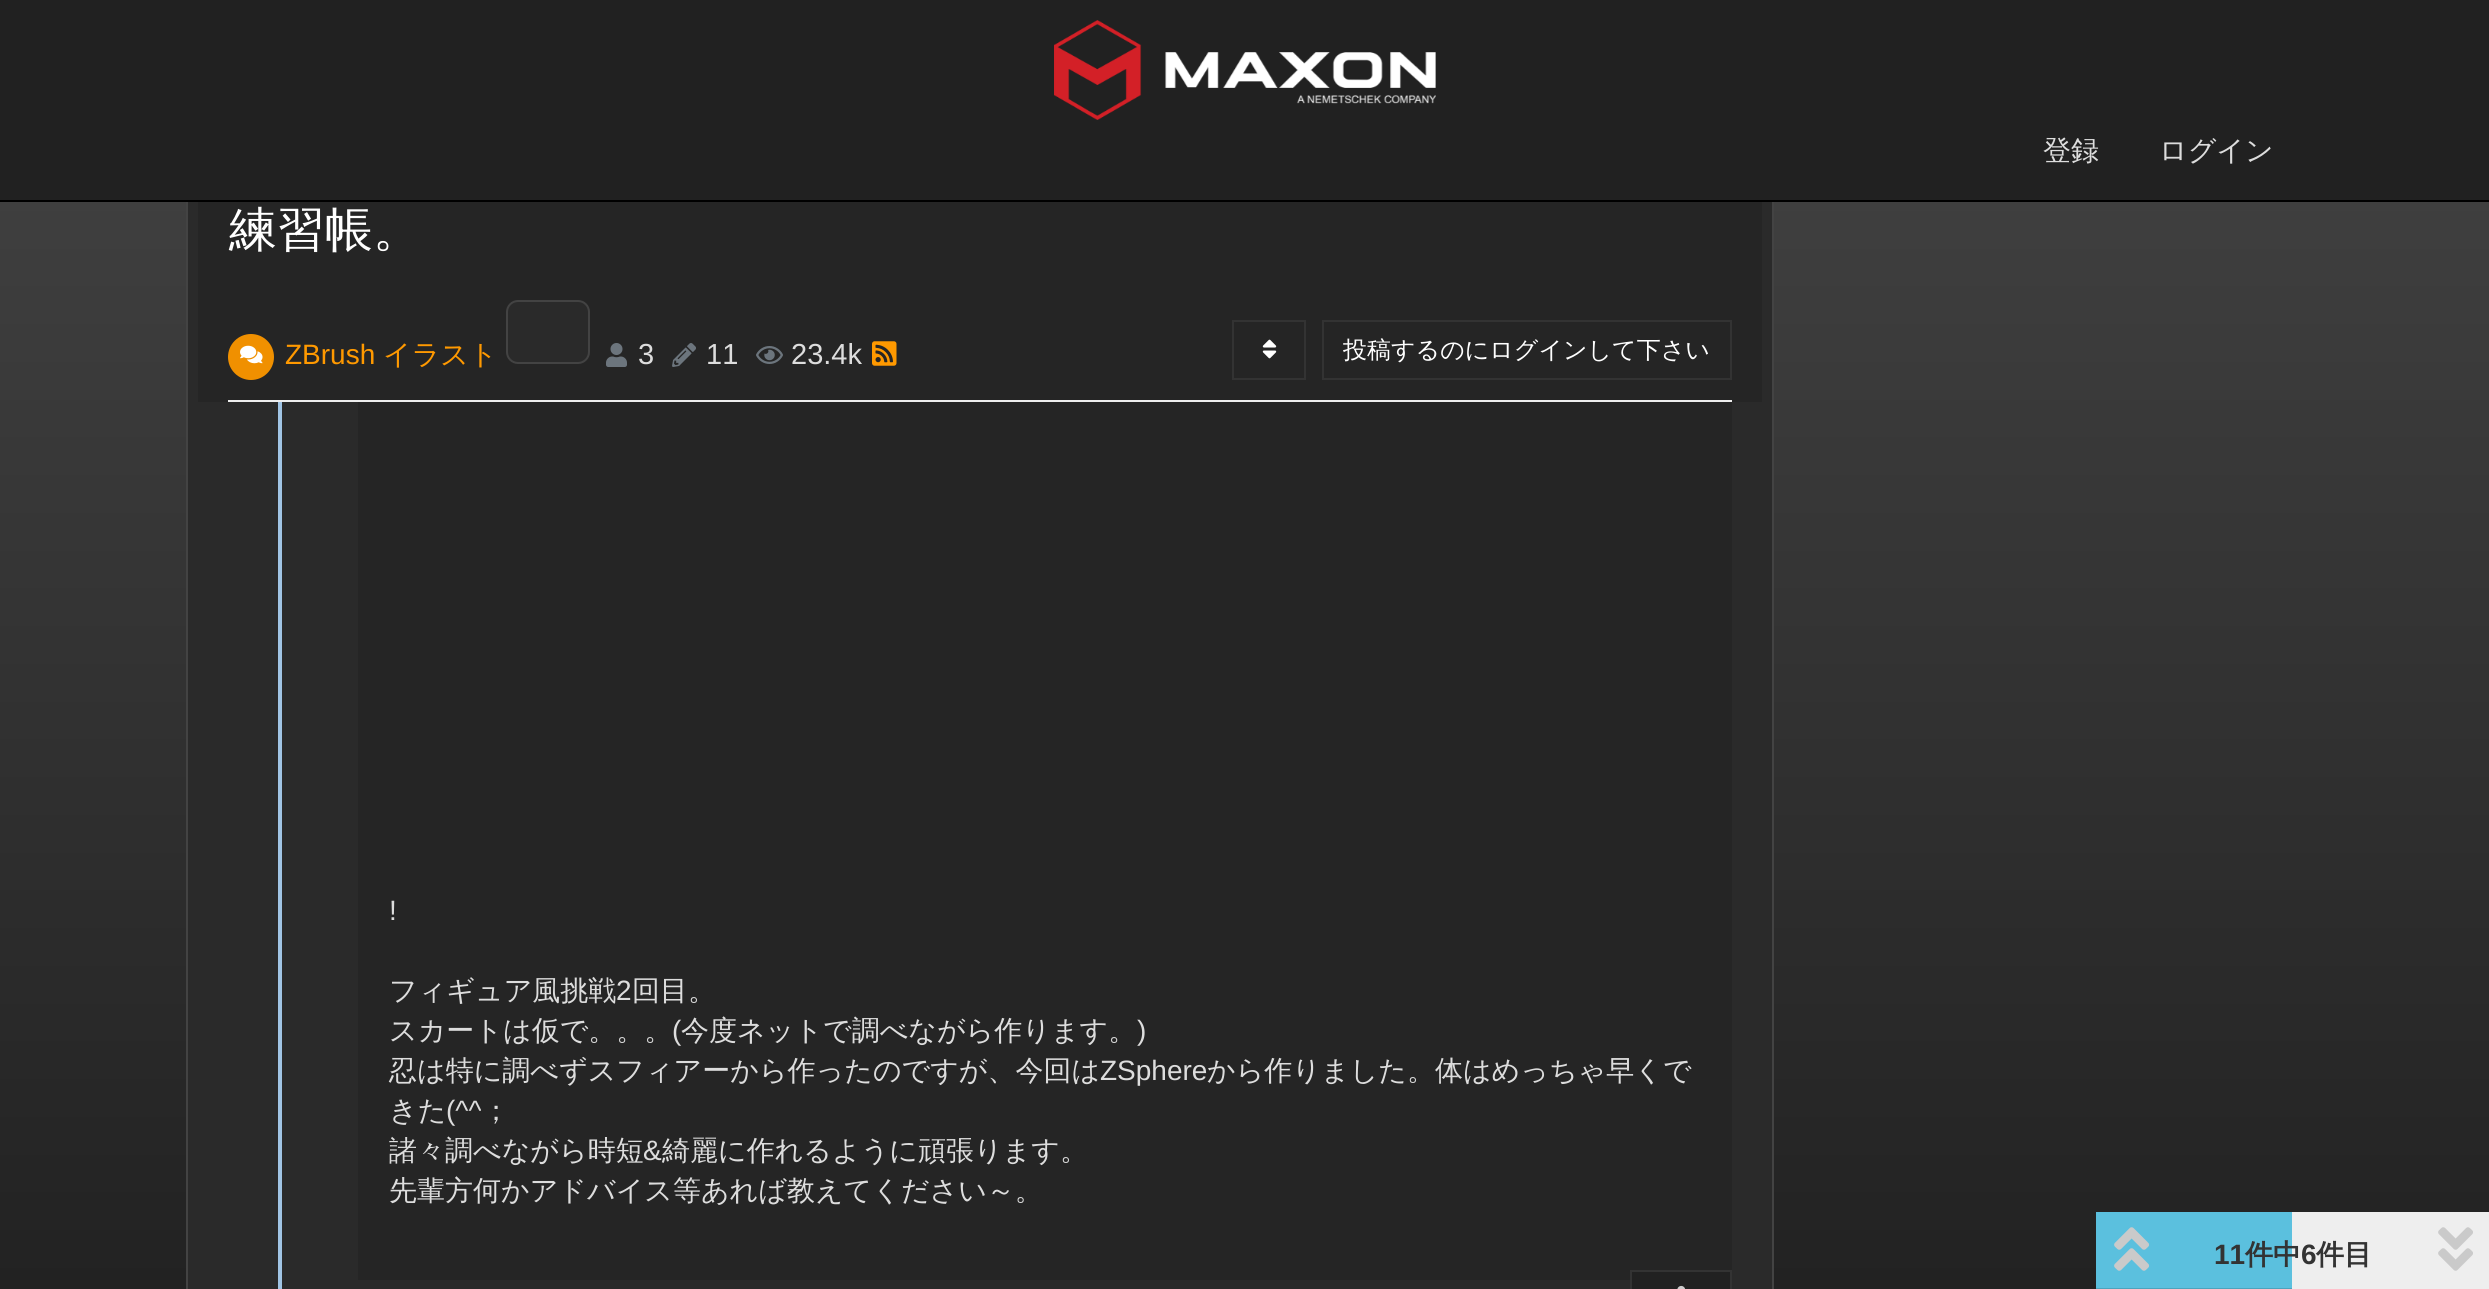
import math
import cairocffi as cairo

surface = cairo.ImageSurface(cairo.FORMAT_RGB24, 2489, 1289)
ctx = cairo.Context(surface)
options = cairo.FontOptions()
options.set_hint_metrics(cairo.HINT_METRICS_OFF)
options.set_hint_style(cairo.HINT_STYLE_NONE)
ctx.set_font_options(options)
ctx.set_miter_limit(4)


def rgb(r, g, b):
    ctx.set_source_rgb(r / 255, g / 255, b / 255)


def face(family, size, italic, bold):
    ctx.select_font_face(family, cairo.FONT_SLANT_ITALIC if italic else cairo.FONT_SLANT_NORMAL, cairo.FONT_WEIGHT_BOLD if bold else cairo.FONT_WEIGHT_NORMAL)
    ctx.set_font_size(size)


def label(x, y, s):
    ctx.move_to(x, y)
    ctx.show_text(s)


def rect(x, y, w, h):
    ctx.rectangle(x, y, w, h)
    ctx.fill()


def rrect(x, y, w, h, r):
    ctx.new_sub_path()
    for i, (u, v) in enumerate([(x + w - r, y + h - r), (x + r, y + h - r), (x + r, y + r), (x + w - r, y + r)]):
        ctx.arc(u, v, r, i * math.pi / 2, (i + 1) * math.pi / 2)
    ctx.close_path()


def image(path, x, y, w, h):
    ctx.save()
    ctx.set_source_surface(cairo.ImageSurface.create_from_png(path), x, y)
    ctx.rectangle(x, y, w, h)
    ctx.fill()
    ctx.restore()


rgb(255, 255, 255)
ctx.paint()
gradient = cairo.LinearGradient(1245, 0, 1245, 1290)
gradient.add_color_stop_rgba(0, 0.267, 0.267, 0.267, 1)
gradient.add_color_stop_rgba(1, 0.133, 0.133, 0.133, 1)
ctx.set_source(gradient)
rect(0, 202, 2489, 1087)
rgb(42, 42, 42)
rect(188, 202, 1584, 1087)
ctx.rectangle(187, -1, 1586, 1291)
rgb(67, 67, 67)
ctx.stroke()
rgb(33, 33, 33)
rect(0, 0, 2489, 200)
rgb(0, 0, 0)
rect(0, 200, 2489, 2)
image('image0.png', 1054, 20, 382, 100)
face('WenQuanYi Zen Hei Medium', 28, 0, 0)
rgb(221, 221, 221)
label(2043, 160, '登録')
label(2159, 160, 'ログイン')
rgb(37, 37, 37)
rect(198, 202, 1564, 200)
face('WenQuanYi Zen Hei Medium', 48, 0, 0)
rgb(255, 255, 255)
label(229, 246, '練習帳。')
rgb(238, 238, 238)
rect(228, 400, 1504, 2)
rgb(240, 144, 0)
ctx.new_path()
ctx.arc(251, 357, 23, 0, 2 * math.pi)
ctx.fill()
image('image1.png', 240, 345, 23, 19)
face('Liberation Sans', 28, 0, 0)
rgb(255, 153, 0)
label(285, 364, 'ZBrush')
face('WenQuanYi Zen Hei Medium', 28, 0, 0)
label(383, 364, 'イラスト')
rgb(42, 42, 42)
rrect(507, 301, 82, 62, 11)
ctx.fill_preserve()
rgb(67, 67, 67)
ctx.stroke()
image('image2.png', 606, 343, 21, 24)
face('Liberation Sans', 29, 0, 0)
rgb(221, 221, 221)
label(638, 364, '3')
image('image3.png', 672, 343, 24, 24)
label(706, 364, '11')
image('image4.png', 756, 346, 27, 18)
label(791, 364, '23.4k')
image('image5.png', 872, 341, 25, 25)
ctx.rectangle(1233, 321, 72, 58)
rgb(51, 51, 51)
ctx.stroke()
image('image6.png', 1262, 339, 15, 20)
ctx.rectangle(1323, 321, 408, 58)
ctx.stroke()
face('WenQuanYi Zen Hei Medium', 24, 0, 0)
rgb(255, 255, 255)
label(1343, 358, '投稿するのにログインして下さい')
rgb(160, 196, 228)
rect(278, 402, 4, 887)
rgb(37, 37, 37)
rect(358, 402, 1374, 878)
face('Liberation Sans', 28, 0, 0)
rgb(221, 221, 221)
label(389, 920, '!')
face('WenQuanYi Zen Hei Medium', 28, 0, 0)
label(389, 1000, 'フィギュア風挑戦')
face('Liberation Sans', 28, 0, 0)
label(616, 1000, '2')
face('WenQuanYi Zen Hei Medium', 28, 0, 0)
label(632, 1000, '回目。')
label(389, 1040, 'スカートは仮で。。。')
face('Liberation Sans', 28, 0, 0)
label(672, 1040, '(')
face('WenQuanYi Zen Hei Medium', 28, 0, 0)
label(681, 1040, '今度ネットで調べながら作ります。')
face('Liberation Sans', 28, 0, 0)
label(1137, 1040, ')')
face('WenQuanYi Zen Hei Medium', 28, 0, 0)
label(389, 1080, '忍は特に調べずスフィアーから作ったのですが、今回は')
face('Liberation Sans', 28, 0, 0)
label(1100, 1080, 'ZSphere')
face('WenQuanYi Zen Hei Medium', 28, 0, 0)
label(1207, 1080, 'から作りました。体はめっちゃ早くで')
label(389, 1120, 'きた')
face('Liberation Sans', 28, 0, 0)
label(446, 1120, '(^^')
face('WenQuanYi Zen Hei Medium', 28, 0, 0)
label(482, 1120, '；')
label(389, 1160, '諸々調べながら時短')
face('Liberation Sans', 28, 0, 0)
label(643, 1160, '&')
face('WenQuanYi Zen Hei Medium', 28, 0, 0)
label(662, 1160, '綺麗に作れるように頑張ります。')
label(389, 1200, '先輩方何かアドバイス等あれば教えてください～。')
rgb(33, 33, 33)
ctx.rectangle(1631, 1271, 100, 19)
ctx.fill_preserve()
rgb(51, 51, 51)
ctx.stroke()
image('image7.png', 1677, 1285, 8, 4)
rgb(238, 238, 238)
rect(2292, 1212, 197, 77)
rgb(91, 192, 222)
rect(2096, 1212, 196, 76)
rgb(77, 163, 189)
rect(2096, 1288, 196, 1)
image('image8.png', 2114, 1227, 36, 44)
face('Liberation Sans', 28, 0, 1)
rgb(51, 51, 51)
label(2214, 1264, '11')
face('WenQuanYi Zen Hei', 28, 0, 1)
label(2245, 1264, '件中')
face('Liberation Sans', 28, 0, 1)
label(2301, 1264, '6')
face('WenQuanYi Zen Hei', 28, 0, 1)
label(2316, 1264, '件目')
image('image9.png', 2438, 1227, 35, 44)
surface.write_to_png('render.png')
